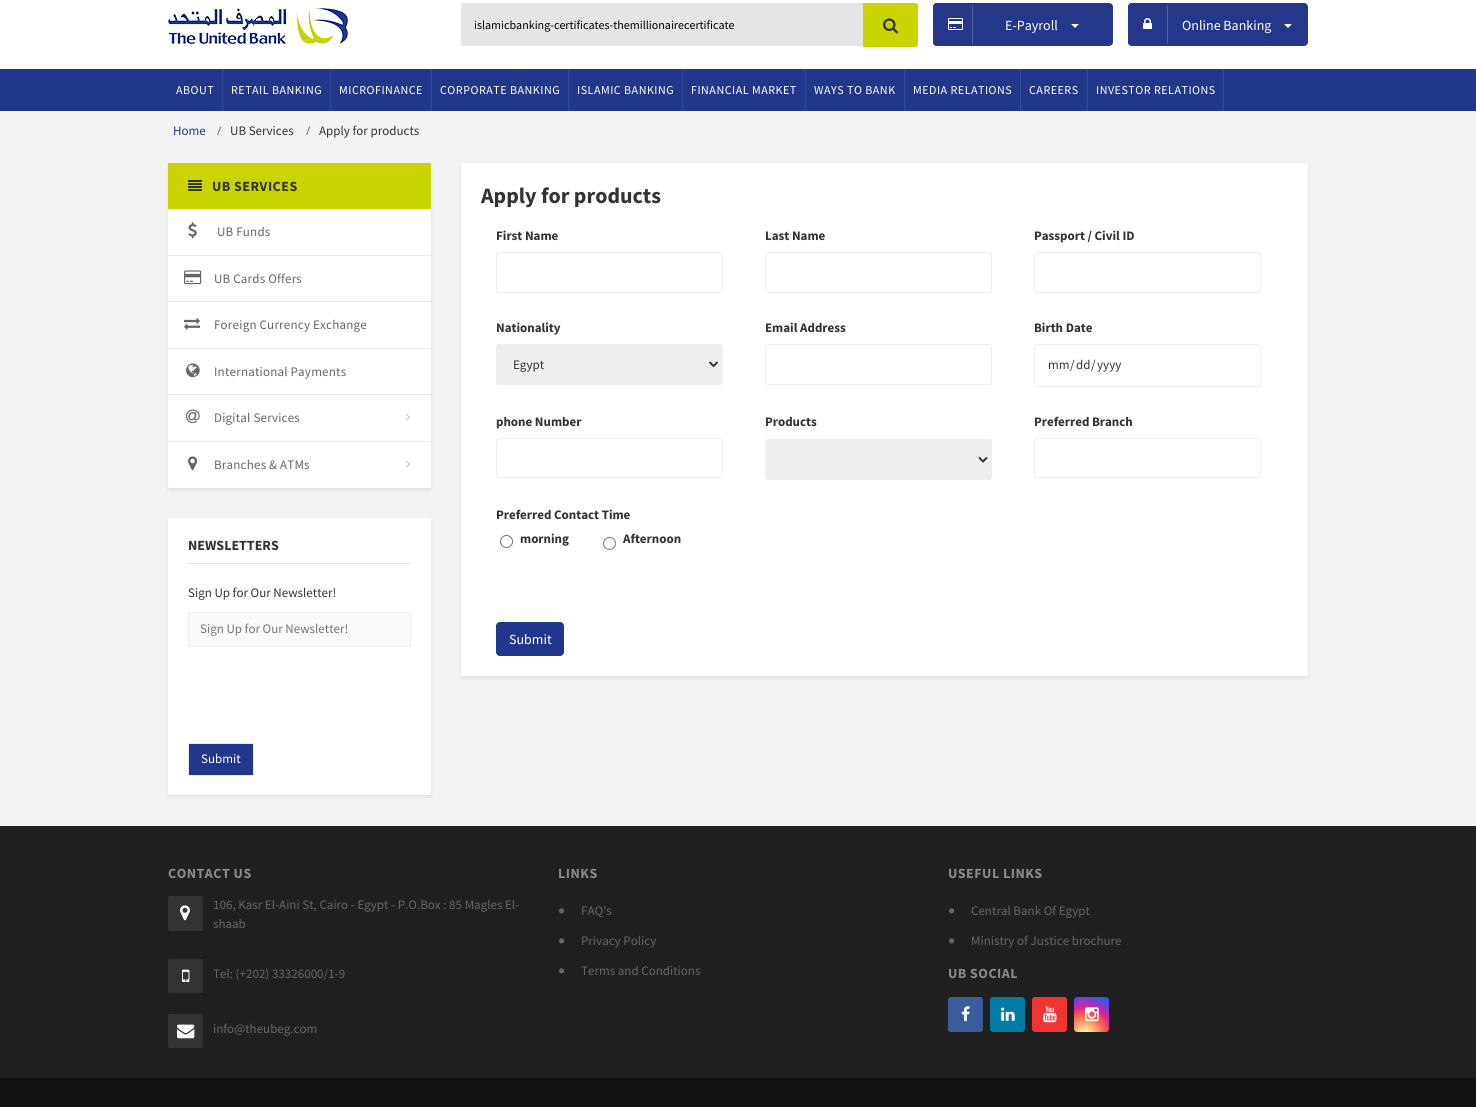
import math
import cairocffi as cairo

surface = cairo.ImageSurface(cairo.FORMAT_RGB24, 1476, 1107)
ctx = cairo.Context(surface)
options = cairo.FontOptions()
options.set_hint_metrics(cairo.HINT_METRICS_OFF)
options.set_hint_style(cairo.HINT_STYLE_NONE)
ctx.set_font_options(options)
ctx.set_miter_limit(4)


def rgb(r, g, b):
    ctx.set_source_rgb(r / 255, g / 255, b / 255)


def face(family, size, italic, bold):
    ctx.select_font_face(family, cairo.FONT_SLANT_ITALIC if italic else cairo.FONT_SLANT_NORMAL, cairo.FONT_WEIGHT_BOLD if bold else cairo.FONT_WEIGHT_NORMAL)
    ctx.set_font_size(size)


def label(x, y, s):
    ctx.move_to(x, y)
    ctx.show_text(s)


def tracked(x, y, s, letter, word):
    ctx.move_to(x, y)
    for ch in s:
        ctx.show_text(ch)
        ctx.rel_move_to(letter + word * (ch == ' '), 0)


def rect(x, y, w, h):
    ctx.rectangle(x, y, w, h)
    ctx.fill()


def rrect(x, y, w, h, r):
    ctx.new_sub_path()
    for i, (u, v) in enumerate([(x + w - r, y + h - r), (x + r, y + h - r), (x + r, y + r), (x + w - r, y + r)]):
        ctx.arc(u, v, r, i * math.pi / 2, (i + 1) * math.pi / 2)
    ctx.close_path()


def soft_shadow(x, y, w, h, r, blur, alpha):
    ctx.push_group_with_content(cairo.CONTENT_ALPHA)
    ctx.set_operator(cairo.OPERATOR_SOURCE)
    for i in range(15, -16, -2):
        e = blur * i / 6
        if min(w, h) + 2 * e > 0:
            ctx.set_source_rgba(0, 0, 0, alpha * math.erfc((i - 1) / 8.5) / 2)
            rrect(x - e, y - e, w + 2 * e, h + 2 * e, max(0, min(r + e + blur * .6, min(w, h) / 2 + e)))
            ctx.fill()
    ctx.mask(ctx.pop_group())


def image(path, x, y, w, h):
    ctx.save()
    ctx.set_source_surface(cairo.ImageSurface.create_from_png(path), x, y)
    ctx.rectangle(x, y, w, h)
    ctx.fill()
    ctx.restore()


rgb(243, 243, 243)
ctx.paint()
rgb(255, 255, 255)
rect(0, 0, 1476, 69)
image('image0.png', 168, 8, 180, 36)
rgb(229, 229, 229)
rrect(461, 3, 457, 43, 2)
ctx.fill()
face('Source Sans Pro', 12, 0, 0)
rgb(0, 0, 0)
label(474, 29, 'islamicbanking-certificates-themillionairecertificate')
rgb(202, 212, 0)
ctx.new_path()
ctx.move_to(863.5, 3.5)
ctx.line_to(915, 3.5)
ctx.curve_to(916.5, 3.5, 917.5, 4.5, 917.5, 6)
ctx.line_to(917.5, 44)
ctx.curve_to(917.5, 45.5, 916.5, 46.5, 915, 46.5)
ctx.line_to(863.5, 46.5)
ctx.close_path()
ctx.fill_preserve()
ctx.set_line_width(1)
ctx.stroke()
image('image1.png', 883, 18, 15, 16)
rgb(37, 55, 138)
rrect(933, 3, 180, 43, 4)
ctx.fill()
rgb(38, 55, 138)
rrect(933, 3, 40, 43, 4)
ctx.fill()
rgb(81, 95, 161)
rect(972, 5, 1, 39)
image('image2.png', 948, 18, 15, 12)
face('Source Sans Pro', 14, 0, 0)
rgb(255, 255, 255)
label(1005, 30, 'E-Payroll')
ctx.new_path()
ctx.move_to(1071, 24)
ctx.line_to(1079, 24)
ctx.line_to(1075, 28)
ctx.close_path()
ctx.fill()
rgb(37, 55, 138)
rrect(1128, 3, 180, 43, 4)
ctx.fill()
rgb(38, 55, 138)
rrect(1128, 3, 40, 43, 4)
ctx.fill()
rgb(81, 95, 161)
rect(1167, 5, 1, 39)
image('image3.png', 1143, 18, 9, 11)
rgb(255, 255, 255)
label(1182, 30, 'Online Banking')
ctx.new_path()
ctx.move_to(1284, 24)
ctx.line_to(1292, 24)
ctx.line_to(1288, 28)
ctx.close_path()
ctx.fill()
rgb(35, 55, 138)
rect(0, 69, 1476, 42)
rgb(57, 75, 150)
rect(222, 69, 1, 42)
face('Source Sans Pro', 12, 0, 0)
rgb(255, 255, 255)
tracked(176, 94, 'ABOUT', 0.5, 0)
rgb(57, 75, 150)
rect(330, 69, 1, 42)
rgb(255, 255, 255)
tracked(231, 94, 'RETAIL BANKING', 0.5, 0)
rgb(57, 75, 150)
rect(431, 69, 1, 42)
rgb(255, 255, 255)
tracked(339, 94, 'MICROFINANCE', 0.5, 0)
rgb(57, 75, 150)
rect(568, 69, 1, 42)
rgb(255, 255, 255)
tracked(440, 94, 'CORPORATE BANKING', 0.5, 0)
rgb(57, 75, 150)
rect(682, 69, 1, 42)
rgb(255, 255, 255)
tracked(577, 94, 'ISLAMIC BANKING', 0.5, 0)
rgb(57, 75, 150)
rect(805, 69, 1, 42)
rgb(255, 255, 255)
tracked(691, 94, 'FINANCIAL MARKET', 0.5, 0)
rgb(57, 75, 150)
rect(904, 69, 1, 42)
rgb(255, 255, 255)
tracked(814, 94, 'WAYS TO BANK', 0.5, 0)
rgb(57, 75, 150)
rect(1020, 69, 1, 42)
rgb(255, 255, 255)
tracked(913, 94, 'MEDIA RELATIONS', 0.5, 0)
rgb(57, 75, 150)
rect(1087, 69, 1, 42)
rgb(255, 255, 255)
tracked(1029, 94, 'CAREERS', 0.5, 0)
rgb(57, 75, 150)
rect(1223, 69, 1, 42)
rgb(255, 255, 255)
tracked(1096, 94, 'INVESTOR RELATIONS', 0.5, 0)
face('Source Sans Pro', 13, 0, 0)
rgb(35, 55, 138)
label(173, 135, 'Home')
face('Open Sans', 12, 0, 0)
rgb(102, 102, 102)
label(217, 135, '/')
face('Source Sans Pro', 13, 0, 0)
rgb(51, 51, 51)
label(230, 135, 'UB Services')
face('Open Sans', 12, 0, 0)
rgb(102, 102, 102)
label(306, 135, '/')
face('Source Sans Pro', 13, 0, 0)
rgb(51, 51, 51)
label(319, 135, 'Apply for products')
rgb(0, 0, 0)
soft_shadow(168, 165, 263, 325, 2, 2, 0.08)
rgb(255, 255, 255)
rrect(168, 163, 263, 325, 2)
ctx.fill()
rgb(202, 212, 0)
rect(168, 163, 263, 46)
image('image4.png', 188, 180, 14, 11)
face('Source Sans Pro', 14, 0, 1)
rgb(51, 51, 51)
tracked(212, 191, 'UB SERVICES', 0.5, 0)
rgb(234, 234, 234)
rect(168, 255, 263, 1)
image('image5.png', 188, 222, 9, 17)
face('Source Sans Pro', 13, 0, 0)
rgb(102, 102, 102)
tracked(217, 236, 'UB Funds', 0.2, 0)
rgb(234, 234, 234)
rect(168, 301, 263, 1)
image('image6.png', 184, 270, 18, 15)
rgb(102, 102, 102)
tracked(214, 283, 'UB Cards Offers', 0.2, 0)
rgb(234, 234, 234)
rect(168, 348, 263, 1)
image('image7.png', 184, 317, 16, 13)
rgb(102, 102, 102)
tracked(214, 329, 'Foreign Currency Exchange', 0.2, 0)
rgb(234, 234, 234)
rect(168, 394, 263, 1)
image('image8.png', 186, 363, 14, 15)
rgb(102, 102, 102)
tracked(214, 376, 'International Payments', 0.2, 0)
rgb(234, 234, 234)
rect(168, 441, 263, 1)
image('image9.png', 186, 409, 14, 15)
rgb(102, 102, 102)
tracked(214, 422, 'Digital Services', 0.2, 0)
image('image10.png', 406, 413, 4, 8)
image('image11.png', 188, 456, 10, 15)
tracked(214, 469, 'Branches & ATMs', 0.2, 0)
image('image10.png', 406, 460, 4, 8)
rgb(0, 0, 0)
soft_shadow(168, 520, 263, 277, 0, 2, 0.08)
rgb(255, 255, 255)
rect(168, 518, 263, 277)
rgb(227, 227, 227)
rect(188, 563, 223, 1)
face('Source Sans Pro', 14, 0, 1)
rgb(51, 51, 51)
label(188, 550, 'NEWSLETTERS')
face('Source Sans Pro', 13, 0, 0)
label(188, 597, 'Sign Up for Our Newsletter!')
rgb(250, 250, 250)
ctx.rectangle(188.5, 612.5, 222, 34)
ctx.fill_preserve()
rgb(238, 238, 238)
ctx.stroke()
rgb(117, 117, 117)
label(200, 633, 'Sign Up for Our Newsletter!')
rgb(34, 54, 139)
ctx.rectangle(188.5, 743.5, 65, 32)
ctx.fill_preserve()
rgb(234, 234, 234)
ctx.stroke()
rgb(255, 255, 255)
label(201, 763, 'Submit')
rgb(0, 0, 0)
soft_shadow(461, 165, 847, 513, 0, 2, 0.08)
rgb(255, 255, 255)
rect(461, 163, 847, 513)
face('Source Sans Pro', 22, 0, 1)
rgb(51, 51, 51)
label(481, 203, 'Apply for products')
face('Source Sans Pro', 13, 0, 1)
label(496, 240, 'First Name')
rrect(496.5, 252.5, 226, 40, 2.5)
rgb(238, 238, 238)
ctx.stroke()
rgb(51, 51, 51)
label(765, 240, 'Last Name')
rrect(765.5, 252.5, 226, 40, 2.5)
rgb(238, 238, 238)
ctx.stroke()
rgb(51, 51, 51)
label(1034, 240, 'Passport / Civil ID')
rrect(1034.5, 252.5, 226, 40, 2.5)
rgb(238, 238, 238)
ctx.stroke()
rgb(51, 51, 51)
label(496, 332, 'Nationality')
rgb(239, 239, 239)
rrect(496.5, 344.5, 226, 40, 2.5)
ctx.fill_preserve()
rgb(238, 238, 238)
ctx.stroke()
ctx.new_path()
ctx.move_to(709.5, 362)
ctx.line_to(713.5, 366)
ctx.line_to(717.5, 362)
rgb(51, 51, 51)
ctx.set_line_width(2)
ctx.stroke()
face('Source Sans Pro', 13, 0, 0)
label(513, 369, 'Egypt')
face('Source Sans Pro', 13, 0, 1)
label(765, 332, 'Email Address')
rrect(765.5, 344.5, 226, 40, 2.5)
rgb(238, 238, 238)
ctx.set_line_width(1)
ctx.stroke()
rgb(51, 51, 51)
label(1034, 332, 'Birth Date')
rrect(1034.5, 344.5, 226, 42, 2.5)
rgb(238, 238, 238)
ctx.stroke()
face('Source Sans Pro', 13, 0, 0)
rgb(51, 51, 51)
label(1048, 369, 'mm')
label(1070, 369, '/')
label(1076, 369, 'dd')
label(1091, 369, '/')
label(1097, 369, 'yyyy')
face('Source Sans Pro', 13, 0, 1)
label(496, 426, 'phone Number')
rrect(496.5, 438.5, 226, 39, 2.5)
rgb(238, 238, 238)
ctx.stroke()
rgb(51, 51, 51)
label(765, 426, 'Products')
rgb(239, 239, 239)
rrect(765.5, 439.5, 226, 40, 2.5)
ctx.fill_preserve()
rgb(238, 238, 238)
ctx.stroke()
ctx.new_path()
ctx.move_to(979, 457.5)
ctx.line_to(983, 461.5)
ctx.line_to(987, 457.5)
rgb(51, 51, 51)
ctx.set_line_width(2)
ctx.stroke()
label(1034, 426, 'Preferred Branch')
rrect(1034.5, 438.5, 226, 39, 2.5)
rgb(238, 238, 238)
ctx.set_line_width(1)
ctx.stroke()
rgb(51, 51, 51)
label(496, 519, 'Preferred Contact Time')
ctx.new_path()
ctx.arc(506.5, 541.5, 6, 0, 2 * math.pi)
rgb(118, 118, 118)
ctx.stroke()
rgb(51, 51, 51)
label(520, 543, 'morning')
ctx.new_path()
ctx.arc(609.5, 543.5, 6, 0, 2 * math.pi)
rgb(118, 118, 118)
ctx.stroke()
rgb(51, 51, 51)
label(623, 543, 'Afternoon')
rgb(34, 54, 139)
rrect(496, 622, 68, 34, 4)
ctx.fill()
face('Source Sans Pro', 14, 0, 0)
rgb(255, 255, 255)
label(509, 644, 'Submit')
rgb(32, 32, 32)
rect(0, 826, 1476, 252)
face('Source Sans Pro', 14, 0, 1)
rgb(137, 137, 137)
tracked(168, 878, 'CONTACT US', 0.5, 0)
rgb(51, 51, 51)
rrect(168, 896, 35, 35, 2)
ctx.fill()
image('image12.png', 180, 905, 10, 16)
face('Source Sans Pro', 13, 0, 0)
rgb(102, 102, 102)
label(213, 909, '106, Kasr El-Aini St, Cairo - Egypt - P.O.Box : 85 Magles El-')
label(213, 928, 'shaab')
rgb(51, 51, 51)
rrect(168, 959, 35, 34, 2)
ctx.fill()
image('image13.png', 182, 969, 8, 13)
rgb(102, 102, 102)
label(213, 978, 'Tel: (+202) 33326000/1-9')
rgb(51, 51, 51)
rrect(168, 1014, 35, 34, 2)
ctx.fill()
image('image14.png', 177, 1024, 18, 15)
rgb(102, 102, 102)
label(213, 1033, 'info@theubeg.com')
face('Source Sans Pro', 14, 0, 1)
rgb(137, 137, 137)
tracked(558, 878, 'LINKS', 0.5, 0)
image('image15.png', 559, 908, 6, 6)
face('Source Sans Pro', 13, 0, 0)
rgb(102, 102, 102)
label(581, 915, 'FAQ\'s')
image('image15.png', 559, 938, 6, 6)
label(581, 945, 'Privacy Policy')
image('image15.png', 559, 968, 6, 6)
label(581, 975, 'Terms and Conditions')
face('Source Sans Pro', 14, 0, 1)
rgb(137, 137, 137)
tracked(948, 878, 'USEFUL LINKS', 0.5, 0)
image('image15.png', 949, 908, 6, 6)
face('Source Sans Pro', 13, 0, 0)
rgb(102, 102, 102)
label(971, 915, 'Central Bank Of Egypt')
image('image15.png', 949, 938, 6, 6)
label(971, 945, 'Ministry of Justice brochure')
face('Source Sans Pro', 14, 0, 1)
rgb(137, 137, 137)
tracked(948, 978, 'UB SOCIAL', 0.5, 0)
rgb(60, 91, 155)
rrect(948, 997, 35, 35, 3)
ctx.fill()
image('image16.png', 961, 1006, 9, 16)
rgb(2, 123, 165)
rrect(990, 997, 35, 35, 3)
ctx.fill()
image('image17.png', 1001, 1007, 14, 14)
rgb(240, 52, 52)
rrect(1032, 997, 35, 35, 3)
ctx.fill()
image('image18.png', 1043, 1006, 14, 17)
gradient = cairo.RadialGradient(1085, 1034, 0, 1085, 1034, 45)
gradient.add_color_stop_rgba(0, 0.992, 0.957, 0.592, 1)
gradient.add_color_stop_rgba(0.05, 0.992, 0.957, 0.592, 1)
gradient.add_color_stop_rgba(0.45, 0.992, 0.349, 0.286, 1)
gradient.add_color_stop_rgba(0.6, 0.839, 0.141, 0.624, 1)
gradient.add_color_stop_rgba(0.9, 0.157, 0.353, 0.922, 1)
ctx.set_source(gradient)
rrect(1074, 997, 35, 35, 3)
ctx.fill()
image('image19.png', 1085, 1007, 14, 15)
rgb(18, 18, 18)
rect(0, 1078, 1476, 29)
surface.write_to_png('render.png')
